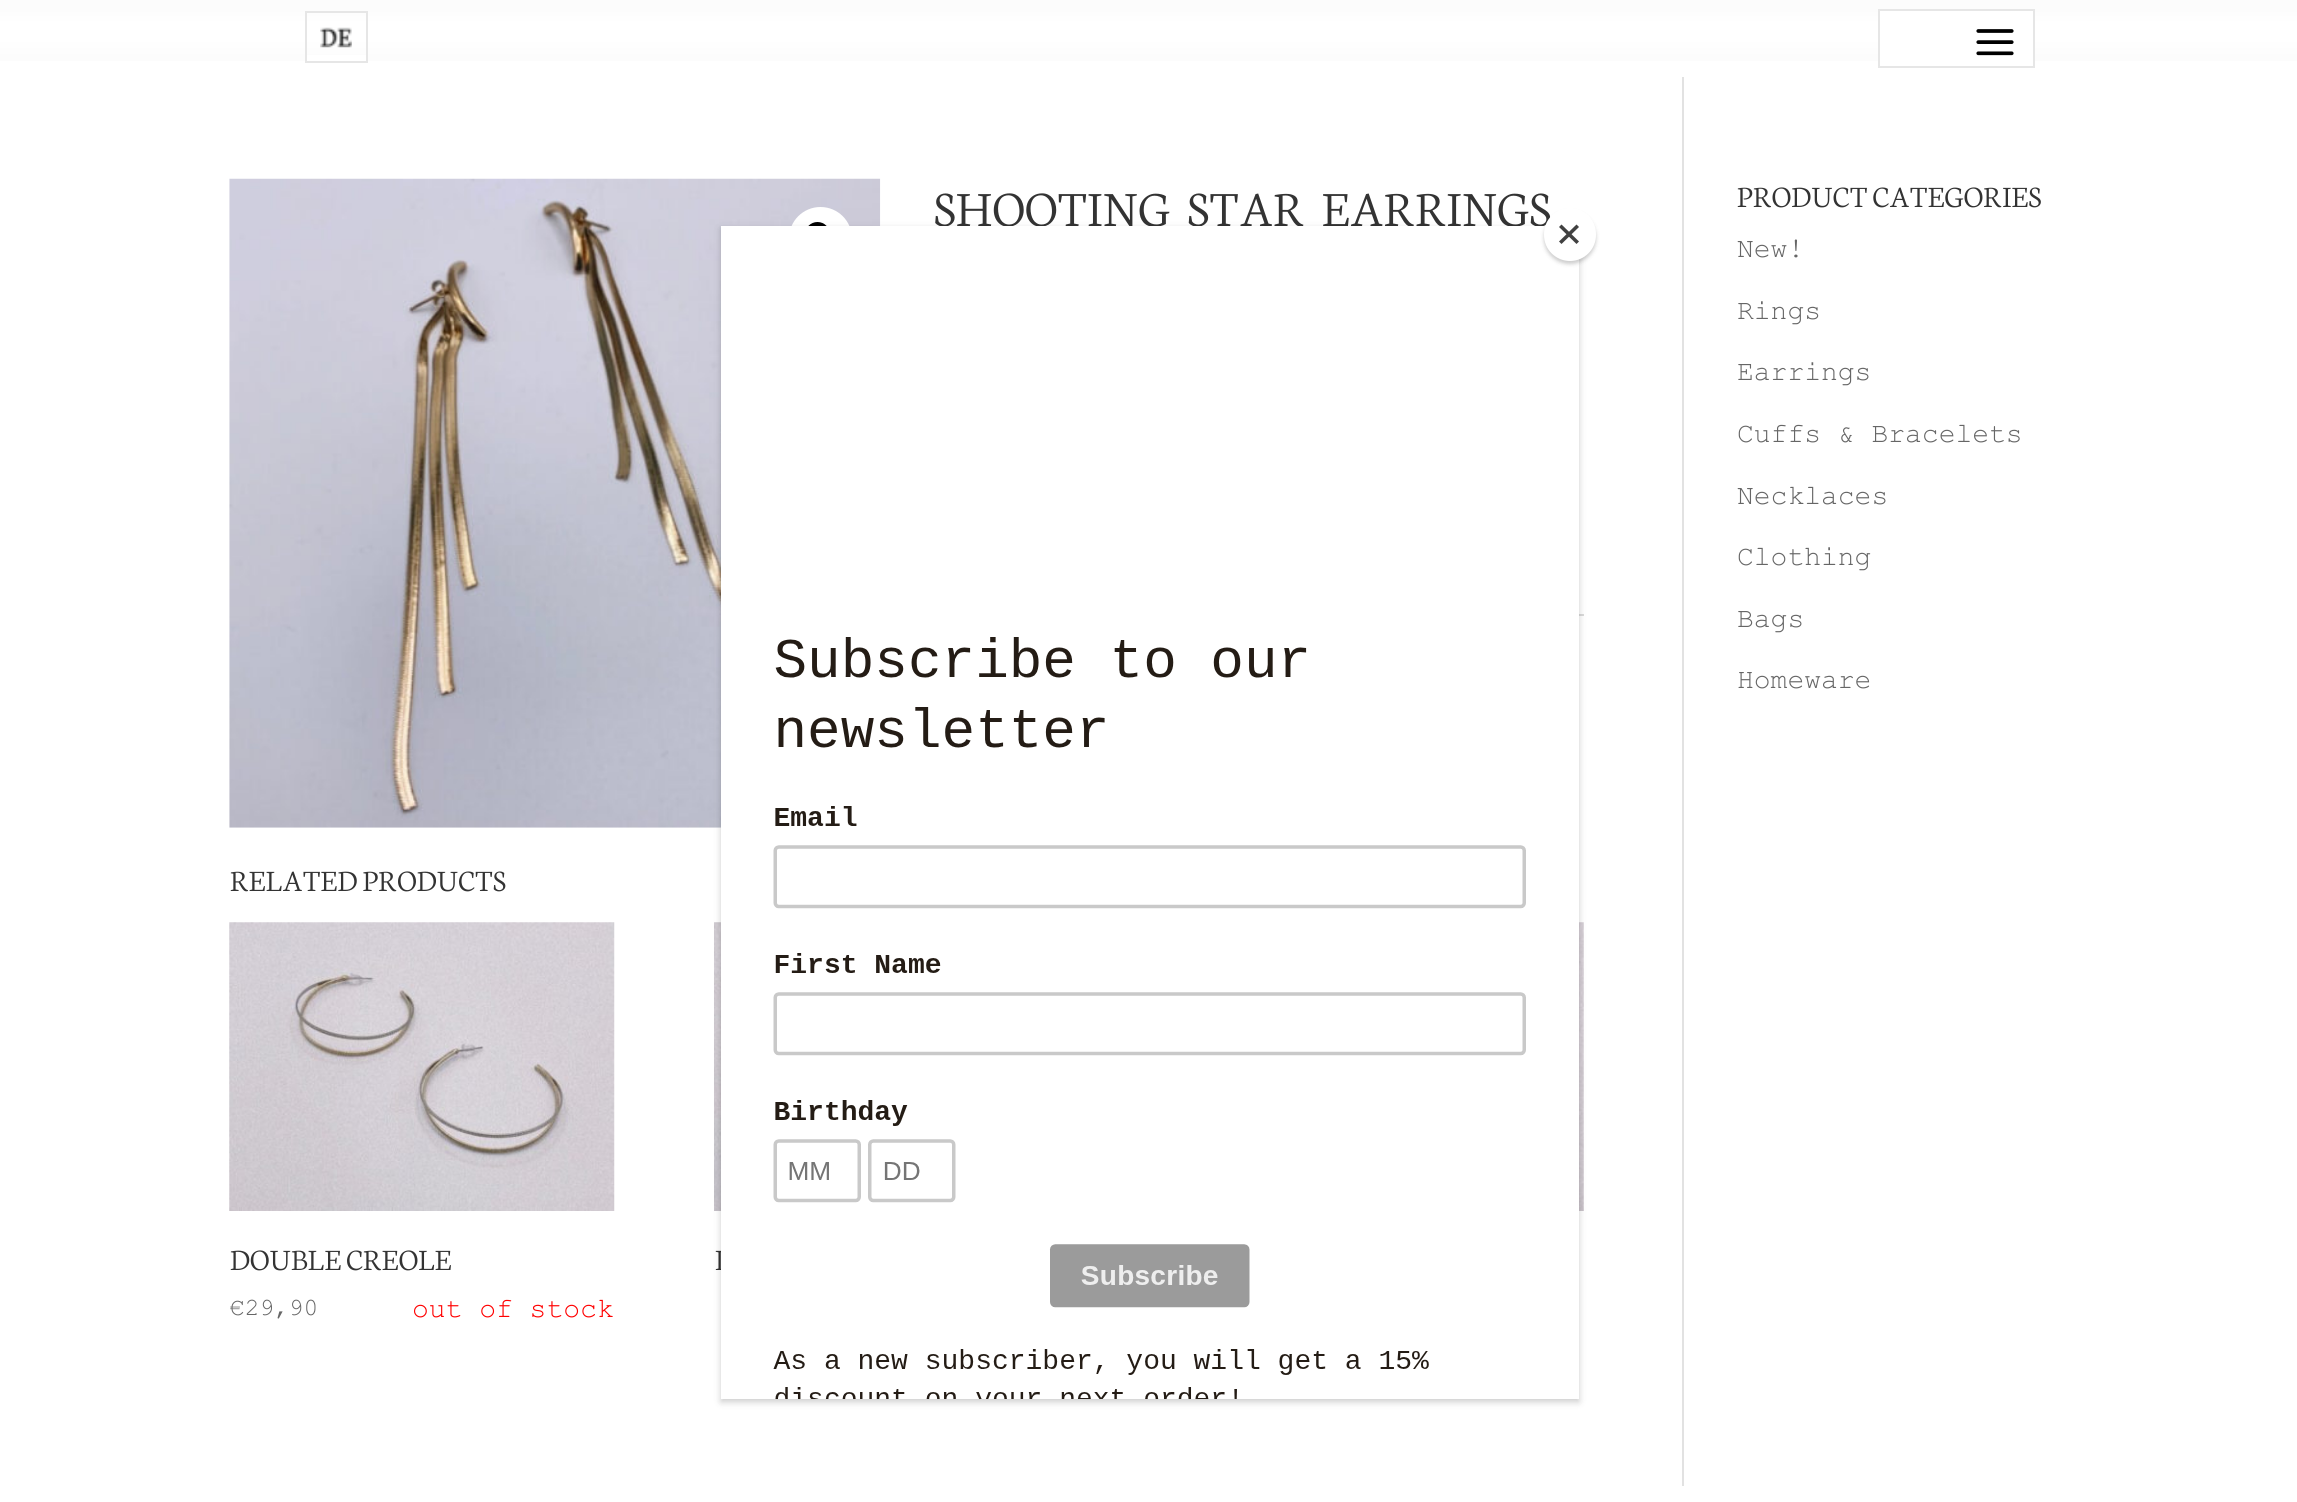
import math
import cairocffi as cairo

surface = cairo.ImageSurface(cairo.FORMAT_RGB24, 2297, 1502)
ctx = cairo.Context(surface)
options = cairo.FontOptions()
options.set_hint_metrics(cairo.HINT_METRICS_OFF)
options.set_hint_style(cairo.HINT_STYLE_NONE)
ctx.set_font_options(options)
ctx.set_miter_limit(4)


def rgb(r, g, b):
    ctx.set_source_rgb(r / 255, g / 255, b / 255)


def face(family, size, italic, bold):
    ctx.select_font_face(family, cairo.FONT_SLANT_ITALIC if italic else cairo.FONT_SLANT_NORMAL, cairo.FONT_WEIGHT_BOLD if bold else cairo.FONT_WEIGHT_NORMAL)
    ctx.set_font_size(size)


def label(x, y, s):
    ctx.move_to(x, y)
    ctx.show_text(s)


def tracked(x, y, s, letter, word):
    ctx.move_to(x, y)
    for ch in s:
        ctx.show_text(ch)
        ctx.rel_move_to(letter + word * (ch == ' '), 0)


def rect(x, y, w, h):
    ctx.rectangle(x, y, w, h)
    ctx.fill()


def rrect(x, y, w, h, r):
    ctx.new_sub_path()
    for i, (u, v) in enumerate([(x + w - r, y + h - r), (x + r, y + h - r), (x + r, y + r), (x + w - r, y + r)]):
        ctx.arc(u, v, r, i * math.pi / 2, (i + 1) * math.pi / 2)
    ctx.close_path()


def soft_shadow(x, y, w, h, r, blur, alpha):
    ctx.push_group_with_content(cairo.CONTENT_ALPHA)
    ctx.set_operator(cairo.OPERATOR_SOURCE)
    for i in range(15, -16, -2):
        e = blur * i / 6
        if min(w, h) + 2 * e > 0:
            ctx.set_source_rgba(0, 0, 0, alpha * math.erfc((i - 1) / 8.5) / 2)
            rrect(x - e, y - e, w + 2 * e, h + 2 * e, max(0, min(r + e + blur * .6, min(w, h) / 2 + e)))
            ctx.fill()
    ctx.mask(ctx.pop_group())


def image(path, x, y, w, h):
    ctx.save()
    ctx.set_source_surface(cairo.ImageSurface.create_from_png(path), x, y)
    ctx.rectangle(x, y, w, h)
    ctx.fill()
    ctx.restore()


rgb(255, 255, 255)
ctx.paint()
gradient = cairo.LinearGradient(1149, 0, 1149, 77)
gradient.add_color_stop_rgba(0, 0.988, 0.988, 0.988, 1)
gradient.add_color_stop_rgba(0.12, 0.988, 0.988, 0.988, 1)
gradient.add_color_stop_rgba(0.3, 1, 1, 1, 1)
gradient.add_color_stop_rgba(0.5, 1, 1, 1, 1)
gradient.add_color_stop_rgba(0.75, 0.988, 0.988, 0.988, 1)
gradient.add_color_stop_rgba(1, 1, 1, 1, 1)
ctx.set_source(gradient)
rect(0, 0, 2297, 61)
rgb(255, 255, 255)
rect(307, 55, 59, 6)
ctx.rectangle(306, 12, 61, 50)
rgb(230, 230, 230)
ctx.stroke()
image('image0.png', 320, 27, 32, 21)
rgb(255, 255, 255)
rect(1880, 11, 153, 50)
image('image1.png', 1976, 29, 38, 27)
ctx.rectangle(1879, 10, 155, 57)
rgb(230, 230, 230)
ctx.stroke()
rgb(226, 226, 226)
rect(1682, 77, 2, 1409)
image('image2.png', 229, 178, 652, 650)
rgb(255, 255, 255)
ctx.arc(820.5, 238.5, 31.5, 0, 2 * math.pi)
ctx.fill()
ctx.arc(817.5, 234.5, 10.5, 0, 2 * math.pi)
rgb(0, 0, 0)
ctx.set_line_width(4)
ctx.stroke()
face('Neuton Light', 52.5, 0, 0)
rgb(51, 51, 51)
tracked(934, 226, 'SHOOTING STAR EARRINGS', 0, 9)
rgb(218, 218, 218)
rect(1579, 614, 5, 2)
face('Neuton Light', 31.5, 0, 0)
rgb(51, 51, 51)
label(230, 891, 'RELATED PRODUCTS')
image('image3.png', 1579, 922, 5, 289)
image('image4.png', 229, 922, 386, 289)
label(230, 1270, 'DOUBLE CREOLE')
face('Courier New', 24.5, 0, 0)
rgb(102, 102, 102)
label(230, 1315, '€29,90')
face('Courier New', 28, 0, 0)
rgb(255, 0, 0)
label(412, 1317, 'out of stock')
image('image5.png', 714, 922, 7, 289)
face('Neuton Light', 31.5, 0, 0)
rgb(51, 51, 51)
label(715, 1270, 'L')
label(1737, 207, 'PRODUCT CATEGORIES')
face('Courier New', 28, 0, 0)
rgb(102, 102, 102)
label(1737, 257, 'New!')
label(1737, 319, 'Rings')
label(1737, 380, 'Earrings')
label(1737, 442, 'Cuffs & Bracelets')
label(1737, 504, 'Necklaces')
label(1737, 565, 'Clothing')
label(1737, 627, 'Bags')
label(1737, 688, 'Homeware')
rgb(0, 0, 0)
soft_shadow(721, 229, 858, 1173, 0, 3.5, 0.2)
image('image6.png', 721, 226, 858, 1173)
soft_shadow(1544, 212, 52, 52, 26, 2, 0.2)
rgb(255, 255, 255)
rrect(1544, 208, 52, 53, 26)
ctx.fill()
rgb(65, 65, 65)
ctx.new_path()
ctx.move_to(1576.5, 224.5)
ctx.line_to(1579, 227)
ctx.line_to(1561.5, 244)
ctx.line_to(1559, 241.5)
ctx.close_path()
ctx.fill()
ctx.new_path()
ctx.move_to(1559, 227)
ctx.line_to(1561.5, 224.5)
ctx.line_to(1579, 241.5)
ctx.line_to(1576.5, 244)
ctx.close_path()
ctx.fill()
surface.write_to_png('render.png')
